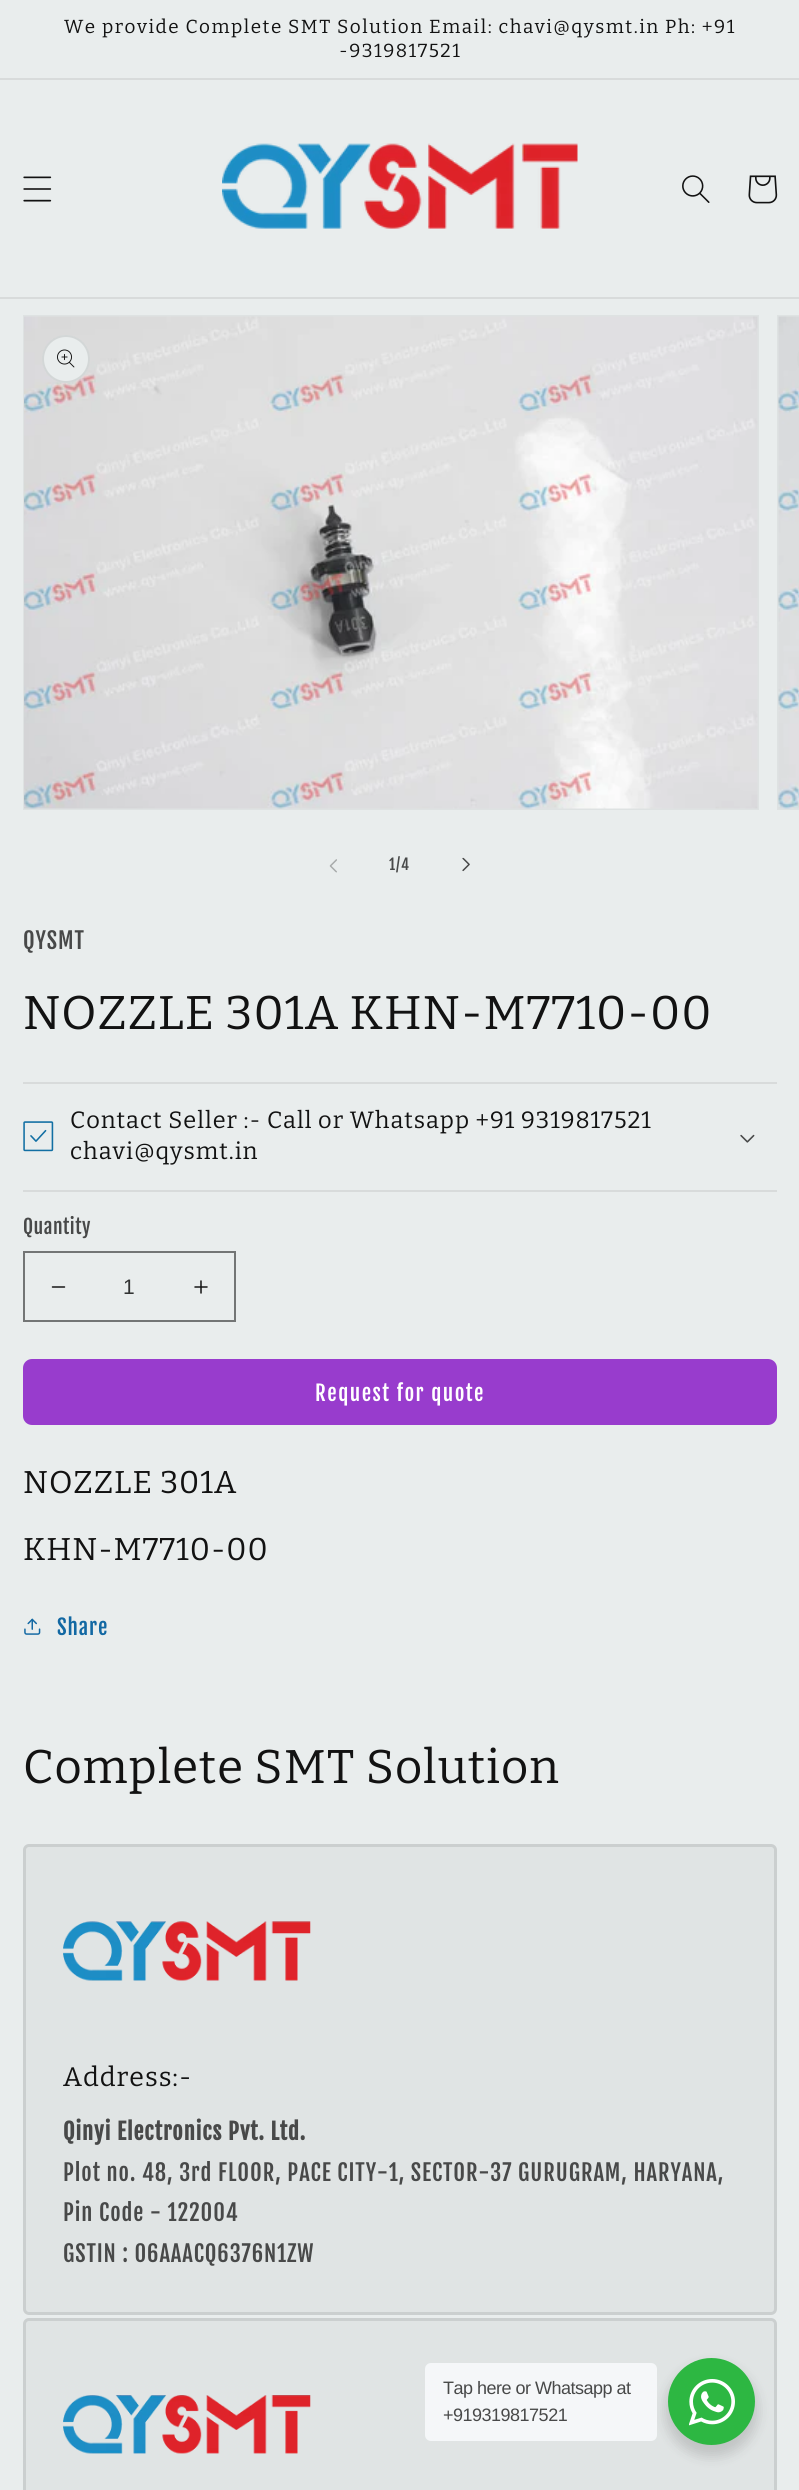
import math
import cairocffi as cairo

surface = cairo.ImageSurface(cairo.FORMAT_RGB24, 799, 2490)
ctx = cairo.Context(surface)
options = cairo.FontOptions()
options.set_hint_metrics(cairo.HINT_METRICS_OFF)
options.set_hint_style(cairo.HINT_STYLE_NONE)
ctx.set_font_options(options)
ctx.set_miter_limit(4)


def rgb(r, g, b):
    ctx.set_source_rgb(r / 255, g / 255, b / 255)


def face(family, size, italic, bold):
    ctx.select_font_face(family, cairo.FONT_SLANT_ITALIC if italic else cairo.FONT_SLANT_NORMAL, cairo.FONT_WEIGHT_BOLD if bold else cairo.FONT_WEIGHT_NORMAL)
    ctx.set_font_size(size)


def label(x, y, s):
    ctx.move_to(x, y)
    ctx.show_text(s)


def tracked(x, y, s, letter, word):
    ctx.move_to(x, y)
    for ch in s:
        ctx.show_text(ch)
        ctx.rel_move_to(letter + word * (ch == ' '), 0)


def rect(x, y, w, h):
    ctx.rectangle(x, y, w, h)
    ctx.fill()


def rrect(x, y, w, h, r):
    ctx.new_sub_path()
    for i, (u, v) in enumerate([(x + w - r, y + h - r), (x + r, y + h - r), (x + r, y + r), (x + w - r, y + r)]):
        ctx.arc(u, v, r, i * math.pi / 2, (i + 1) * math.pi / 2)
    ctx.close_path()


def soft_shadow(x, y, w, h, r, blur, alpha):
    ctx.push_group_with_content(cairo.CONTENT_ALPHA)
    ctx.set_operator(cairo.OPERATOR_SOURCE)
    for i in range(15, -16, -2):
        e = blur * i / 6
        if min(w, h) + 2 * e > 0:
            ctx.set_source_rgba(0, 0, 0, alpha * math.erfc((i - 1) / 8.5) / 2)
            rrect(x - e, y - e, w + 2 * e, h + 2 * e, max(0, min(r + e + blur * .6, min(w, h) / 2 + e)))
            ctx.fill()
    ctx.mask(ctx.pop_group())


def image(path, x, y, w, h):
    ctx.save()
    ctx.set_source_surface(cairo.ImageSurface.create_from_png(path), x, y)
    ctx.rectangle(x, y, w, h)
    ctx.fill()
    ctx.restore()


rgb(233, 237, 237)
ctx.paint()
rgb(216, 219, 219)
rect(0, 78, 799, 2)
face('Bitter', 18.9, 0, 0)
rgb(18, 18, 18)
tracked(64, 33, 'We provide Complete SMT Solution Email: chavi@qysmt.in Ph: +91', 1.5, 0)
tracked(339, 57, '-9319817521', 1.5, 0)
rgb(216, 219, 219)
rect(0, 297, 799, 2)
image('image0.png', 23, 176, 29, 26)
image('image1.png', 222, 143, 356, 86)
image('image2.png', 682, 175, 28, 28)
image('image3.png', 748, 175, 30, 29)
ctx.rectangle(24, 316, 734, 493)
rgb(222, 226, 226)
ctx.stroke()
image('image4.png', 24, 316, 734, 493)
rgb(233, 237, 237)
ctx.arc(66, 359, 24, 0, 2 * math.pi)
ctx.fill()
ctx.arc(66, 359, 23, 0, 2 * math.pi)
ctx.set_source_rgba(0.071, 0.071, 0.071, 0.1)
ctx.stroke()
image('image5.png', 57, 349, 18, 19)
ctx.rectangle(778, 316, 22, 493)
rgb(222, 226, 226)
ctx.stroke()
image('image6.png', 778, 316, 21, 493)
rgb(233, 237, 237)
ctx.new_path()
ctx.move_to(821, 335)
ctx.line_to(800, 335)
ctx.line_to(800, 383)
ctx.line_to(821, 383)
ctx.curve_to(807.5, 383, 797, 372.5, 797, 359)
ctx.curve_to(797, 345.5, 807.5, 335, 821, 335)
ctx.close_path()
ctx.fill()
rrect(798, 336, 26, 46, 23)
ctx.set_source_rgba(0.071, 0.071, 0.071, 0.1)
ctx.stroke()
image('image7.png', 329, 859, 8, 14)
face('Fjalla One', 15, 0, 0)
rgb(72, 73, 73)
tracked(389, 870, '1/4', 1, 0)
image('image8.png', 462, 857, 8, 15)
face('Fjalla One', 22.5, 0, 0)
tracked(23, 949, 'QYSMT', 0.9, 0)
face('Bitter', 47.25, 0, 0)
rgb(18, 18, 18)
tracked(23, 1029, 'NOZZLE 301A KHN-M7710-00', 0.95, 0)
rgb(216, 219, 219)
rect(23, 1082, 754, 2)
rect(23, 1190, 754, 2)
image('image9.png', 23, 1121, 31, 31)
face('Bitter', 23.6, 0, 0)
rgb(18, 18, 18)
tracked(70, 1128, 'Contact Seller :- Call or Whatsapp +91 9319817521', 0.95, 0)
tracked(70, 1159, 'chavi@qysmt.in', 0.95, 0)
image('image10.png', 740, 1134, 15, 9)
face('Fjalla One', 19.5, 0, 0)
rgb(72, 73, 73)
tracked(23, 1234, 'Quantity', 0.5, 0)
image('image11.png', 51, 1286, 15, 2)
image('image12.png', 194, 1280, 14, 14)
ctx.rectangle(24, 1252, 211, 69)
rgb(115, 117, 117)
ctx.stroke()
face('Liberation Sans', 21, 0, 0)
rgb(50, 51, 51)
label(123, 1294, '1')
rgb(152, 60, 205)
rrect(23, 1359, 754, 66, 9)
ctx.fill()
face('Fjalla One', 21, 0, 0)
rgb(255, 255, 255)
tracked(315, 1401, 'Request for quote', 1.5, 0)
face('Bitter', 31.5, 0, 0)
rgb(18, 18, 18)
tracked(23, 1493, 'NOZZLE 301A', 0.95, 0)
tracked(23, 1560, 'KHN-M7710-00', 0.95, 0)
image('image13.png', 24, 1618, 17, 17)
face('Fjalla One', 21, 0, 0)
rgb(18, 104, 163)
tracked(57, 1635, 'Share', 0.9, 0)
face('Bitter', 47.25, 0, 0)
rgb(18, 18, 18)
tracked(23, 1783, 'Complete SMT Solution', 0.95, 0)
rgb(224, 228, 228)
rrect(24.5, 1845.5, 751, 468, 4.5)
ctx.fill_preserve()
rgb(203, 207, 207)
ctx.set_line_width(3)
ctx.stroke()
image('image14.png', 63, 1921, 248, 60)
face('Bitter', 26.75, 0, 0)
rgb(18, 18, 18)
tracked(63, 2086, 'Address:-', 0.95, 0)
face('Fjalla One', 22.5, 0, 1)
rgb(72, 73, 73)
tracked(63, 2140, 'Qinyi Electronics Pvt. Ltd.', 0.9, 0)
face('Fjalla One', 22.5, 0, 0)
tracked(63, 2181, 'Plot no. 48, 3rd FLOOR, PACE CITY-1, SECTOR-37 GURUGRAM, HARYANA,', 0.9, 0)
tracked(63, 2221, 'Pin Code - 122004', 0.9, 0)
tracked(63, 2262, 'GSTIN : 06AAACQ6376N1ZW', 0.9, 0)
rgb(224, 228, 228)
rrect(24.5, 2319.5, 751, 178, 4.5)
ctx.fill_preserve()
rgb(203, 207, 207)
ctx.stroke()
image('image15.png', 63, 2395, 248, 59)
rgb(0, 0, 0)
soft_shadow(665, 2364, 93, 93, 46.5, 6, 0.14)
rgb(245, 247, 249)
rrect(425, 2363, 232, 78, 6)
ctx.fill()
face('Liberation Sans', 18, 0, 0)
rgb(72, 73, 73)
tracked(443, 2394, 'Tap here or Whatsapp at', -0.5, 0)
tracked(443, 2421, '+919319817521', -0.5, 0)
rgb(45, 183, 66)
ctx.new_path()
ctx.arc(711.5, 2401.5, 43.5, 0, 2 * math.pi)
ctx.fill()
image('image16.png', 689, 2379, 46, 47)
surface.write_to_png('render.png')
